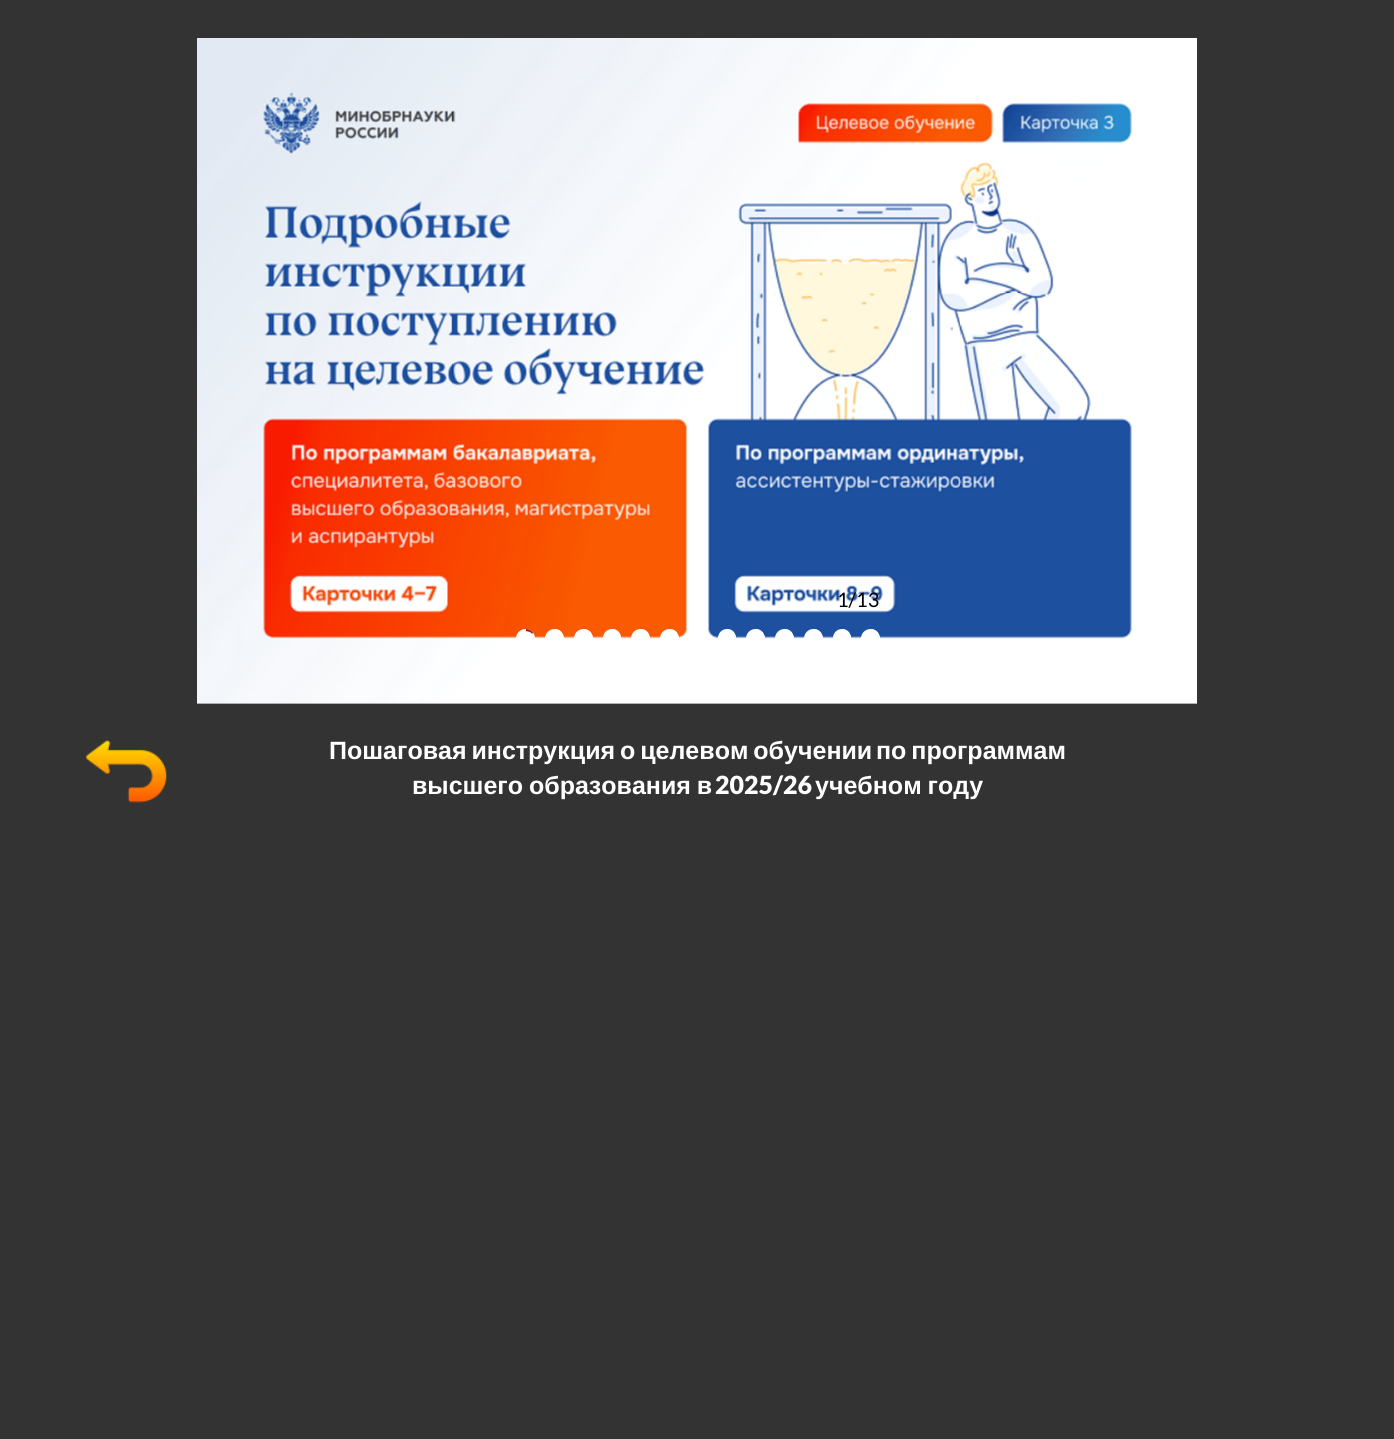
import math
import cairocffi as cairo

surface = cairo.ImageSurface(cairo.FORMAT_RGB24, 1394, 1439)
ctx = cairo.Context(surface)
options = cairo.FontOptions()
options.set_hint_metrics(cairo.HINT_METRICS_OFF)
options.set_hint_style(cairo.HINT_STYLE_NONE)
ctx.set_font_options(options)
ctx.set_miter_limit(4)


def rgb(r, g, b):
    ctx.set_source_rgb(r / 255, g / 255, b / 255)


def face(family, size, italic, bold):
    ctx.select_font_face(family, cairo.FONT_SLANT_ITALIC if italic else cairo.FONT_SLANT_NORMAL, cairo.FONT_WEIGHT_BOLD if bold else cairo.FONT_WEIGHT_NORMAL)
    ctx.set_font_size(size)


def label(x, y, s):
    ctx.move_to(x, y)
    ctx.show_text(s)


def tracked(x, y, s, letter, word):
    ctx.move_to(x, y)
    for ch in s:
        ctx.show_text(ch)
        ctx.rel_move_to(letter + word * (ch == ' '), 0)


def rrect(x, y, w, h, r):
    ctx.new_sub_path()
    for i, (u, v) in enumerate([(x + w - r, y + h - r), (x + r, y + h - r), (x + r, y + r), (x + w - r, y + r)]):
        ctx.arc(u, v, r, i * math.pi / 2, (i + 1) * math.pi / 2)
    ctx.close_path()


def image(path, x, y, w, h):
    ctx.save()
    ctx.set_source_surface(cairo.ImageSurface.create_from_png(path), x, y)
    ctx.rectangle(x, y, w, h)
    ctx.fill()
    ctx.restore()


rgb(51, 51, 51)
ctx.paint()
image('image0.png', 197, 38, 1000, 666)
face('Lato', 20, 0, 0)
rgb(0, 0, 0)
label(837, 607, '1/13')
rgb(255, 255, 255)
ctx.new_path()
ctx.arc(525.5, 638.5, 9.5, 0, 2 * math.pi)
ctx.fill()
ctx.new_path()
ctx.move_to(526, 630)
ctx.curve_to(538, 630, 537.5, 648, 526, 648)
ctx.curve_to(514.5, 648, 514, 630, 526, 630)
ctx.close_path()
ctx.fill()
ctx.save()
rrect(516, 629, 19, 19, 9.5)
ctx.clip()
ctx.new_path()
ctx.move_to(526, 630)
ctx.curve_to(529, 630, 531.5, 631, 533, 633)
rgb(147, 28, 31)
ctx.set_line_width(2.5)
ctx.stroke()
ctx.restore()
ctx.arc(554.5, 638.5, 9.5, 0, 2 * math.pi)
ctx.fill()
ctx.new_path()
ctx.move_to(555, 630)
ctx.curve_to(567, 630, 566.5, 648, 555, 648)
ctx.curve_to(543.5, 648, 543, 630, 555, 630)
ctx.close_path()
ctx.fill()
ctx.save()
rrect(545, 629, 19, 19, 9.5)
ctx.clip()
ctx.new_path()
ctx.move_to(555, 630)
ctx.curve_to(557.5, 630, 560, 631, 561.5, 633)
ctx.set_line_width(2.5)
ctx.stroke()
ctx.restore()
ctx.arc(583.5, 638.5, 9.5, 0, 2 * math.pi)
ctx.fill()
ctx.new_path()
ctx.move_to(584, 630)
ctx.curve_to(596, 630, 595.5, 648, 584, 648)
ctx.curve_to(572.5, 648, 572, 630, 584, 630)
ctx.close_path()
ctx.fill()
ctx.save()
rrect(574, 629, 19, 19, 9.5)
ctx.clip()
ctx.new_path()
ctx.move_to(584, 630)
ctx.curve_to(586.5, 630, 589, 631, 590.5, 633)
ctx.set_line_width(2.5)
ctx.stroke()
ctx.restore()
rrect(603, 629, 18, 19, 9)
ctx.fill()
ctx.new_path()
ctx.move_to(612.5, 630)
ctx.curve_to(618.5, 630, 622, 635, 621, 641)
ctx.curve_to(620.5, 643.5, 618.5, 646, 615.5, 647)
ctx.curve_to(607, 651, 599.5, 639.5, 606, 632.5)
ctx.curve_to(608, 631, 610, 630, 612.5, 630)
ctx.close_path()
ctx.fill()
ctx.save()
rrect(603, 629, 18, 19, 9)
ctx.clip()
ctx.new_path()
ctx.move_to(612.5, 630)
ctx.curve_to(615, 630, 617.5, 631, 619, 633)
ctx.set_line_width(2.5)
ctx.stroke()
ctx.restore()
ctx.arc(640.5, 638.5, 9.5, 0, 2 * math.pi)
ctx.fill()
ctx.new_path()
ctx.move_to(641, 630)
ctx.curve_to(653, 630, 652.5, 648, 641, 648)
ctx.curve_to(629.5, 648, 629, 630, 641, 630)
ctx.close_path()
ctx.fill()
ctx.save()
rrect(631, 629, 19, 19, 9.5)
ctx.clip()
ctx.new_path()
ctx.move_to(641, 630)
ctx.curve_to(644, 630, 646.5, 631, 648, 633)
ctx.set_line_width(2.5)
ctx.stroke()
ctx.restore()
ctx.arc(669.5, 638.5, 9.5, 0, 2 * math.pi)
ctx.fill()
ctx.new_path()
ctx.move_to(670, 630)
ctx.curve_to(682, 630, 681.5, 648, 670, 648)
ctx.curve_to(658.5, 648, 658, 630, 670, 630)
ctx.close_path()
ctx.fill()
ctx.save()
rrect(660, 629, 19, 19, 9.5)
ctx.clip()
ctx.new_path()
ctx.move_to(670, 630)
ctx.curve_to(672.5, 630, 675, 631, 676.5, 633)
ctx.set_line_width(2.5)
ctx.stroke()
ctx.restore()
rrect(718, 629, 18, 19, 9)
ctx.fill()
ctx.new_path()
ctx.move_to(727.5, 630)
ctx.curve_to(733.5, 630, 737, 635, 736, 641)
ctx.curve_to(735.5, 643.5, 733.5, 646, 730.5, 647)
ctx.curve_to(722, 651, 714.5, 639.5, 721, 632.5)
ctx.curve_to(723, 631, 725, 630, 727.5, 630)
ctx.close_path()
ctx.fill()
ctx.save()
rrect(718, 629, 18, 19, 9)
ctx.clip()
ctx.new_path()
ctx.move_to(727.5, 630)
ctx.curve_to(730, 630, 732.5, 631, 734, 633)
ctx.set_line_width(2.5)
ctx.stroke()
ctx.restore()
ctx.arc(755.5, 638.5, 9.5, 0, 2 * math.pi)
ctx.fill()
ctx.new_path()
ctx.move_to(756, 630)
ctx.curve_to(768, 630, 767.5, 648, 756, 648)
ctx.curve_to(744.5, 648, 744, 630, 756, 630)
ctx.close_path()
ctx.fill()
ctx.save()
rrect(746, 629, 19, 19, 9.5)
ctx.clip()
ctx.new_path()
ctx.move_to(756, 630)
ctx.curve_to(759, 630, 761.5, 631, 763, 633)
ctx.set_line_width(2.5)
ctx.stroke()
ctx.restore()
ctx.arc(784.5, 638.5, 9.5, 0, 2 * math.pi)
ctx.fill()
ctx.new_path()
ctx.move_to(785, 630)
ctx.curve_to(797, 630, 796.5, 648, 785, 648)
ctx.curve_to(773.5, 648, 773, 630, 785, 630)
ctx.close_path()
ctx.fill()
ctx.save()
rrect(775, 629, 19, 19, 9.5)
ctx.clip()
ctx.new_path()
ctx.move_to(785, 630)
ctx.curve_to(787.5, 630, 790, 631, 791.5, 633)
ctx.set_line_width(2.5)
ctx.stroke()
ctx.restore()
ctx.arc(813.5, 638.5, 9.5, 0, 2 * math.pi)
ctx.fill()
ctx.new_path()
ctx.move_to(814, 630)
ctx.curve_to(826, 630, 825.5, 648, 814, 648)
ctx.curve_to(802.5, 648, 802, 630, 814, 630)
ctx.close_path()
ctx.fill()
ctx.save()
rrect(804, 629, 19, 19, 9.5)
ctx.clip()
ctx.new_path()
ctx.move_to(814, 630)
ctx.curve_to(816.5, 630, 819, 631, 820.5, 633)
ctx.set_line_width(2.5)
ctx.stroke()
ctx.restore()
rrect(833, 629, 18, 19, 9)
ctx.fill()
ctx.new_path()
ctx.move_to(842.5, 630)
ctx.curve_to(848.5, 630, 852, 635, 851, 641)
ctx.curve_to(850.5, 643.5, 848.5, 646, 845.5, 647)
ctx.curve_to(837, 651, 829.5, 639.5, 836, 632.5)
ctx.curve_to(838, 631, 840, 630, 842.5, 630)
ctx.close_path()
ctx.fill()
ctx.save()
rrect(833, 629, 18, 19, 9)
ctx.clip()
ctx.new_path()
ctx.move_to(842.5, 630)
ctx.curve_to(845, 630, 847.5, 631, 849, 633)
ctx.set_line_width(2.5)
ctx.stroke()
ctx.restore()
ctx.arc(870.5, 638.5, 9.5, 0, 2 * math.pi)
ctx.fill()
ctx.new_path()
ctx.move_to(871, 630)
ctx.curve_to(883, 630, 882.5, 648, 871, 648)
ctx.curve_to(859.5, 648, 859, 630, 871, 630)
ctx.close_path()
ctx.fill()
ctx.save()
rrect(861, 629, 19, 19, 9.5)
ctx.clip()
ctx.new_path()
ctx.move_to(871, 630)
ctx.curve_to(874, 630, 876.5, 631, 878, 633)
ctx.set_line_width(2.5)
ctx.stroke()
ctx.restore()
image('image1.png', 86, 740, 81, 63)
face('Liberation Sans', 25, 0, 1)
tracked(329, 759, 'Пошаговая инструкция', 0, -2)
tracked(620, 759, 'о целевом обучении', 0, -2)
tracked(876, 759, 'по программам', 0, -2)
tracked(412, 794, 'высшего образования в', 0, -1)
face('Lato Black', 25, 0, 0)
label(715, 794, '2025/26')
face('Liberation Sans', 25, 0, 1)
tracked(815, 794, 'учебном году', 0, -1)
surface.write_to_png('render.png')
